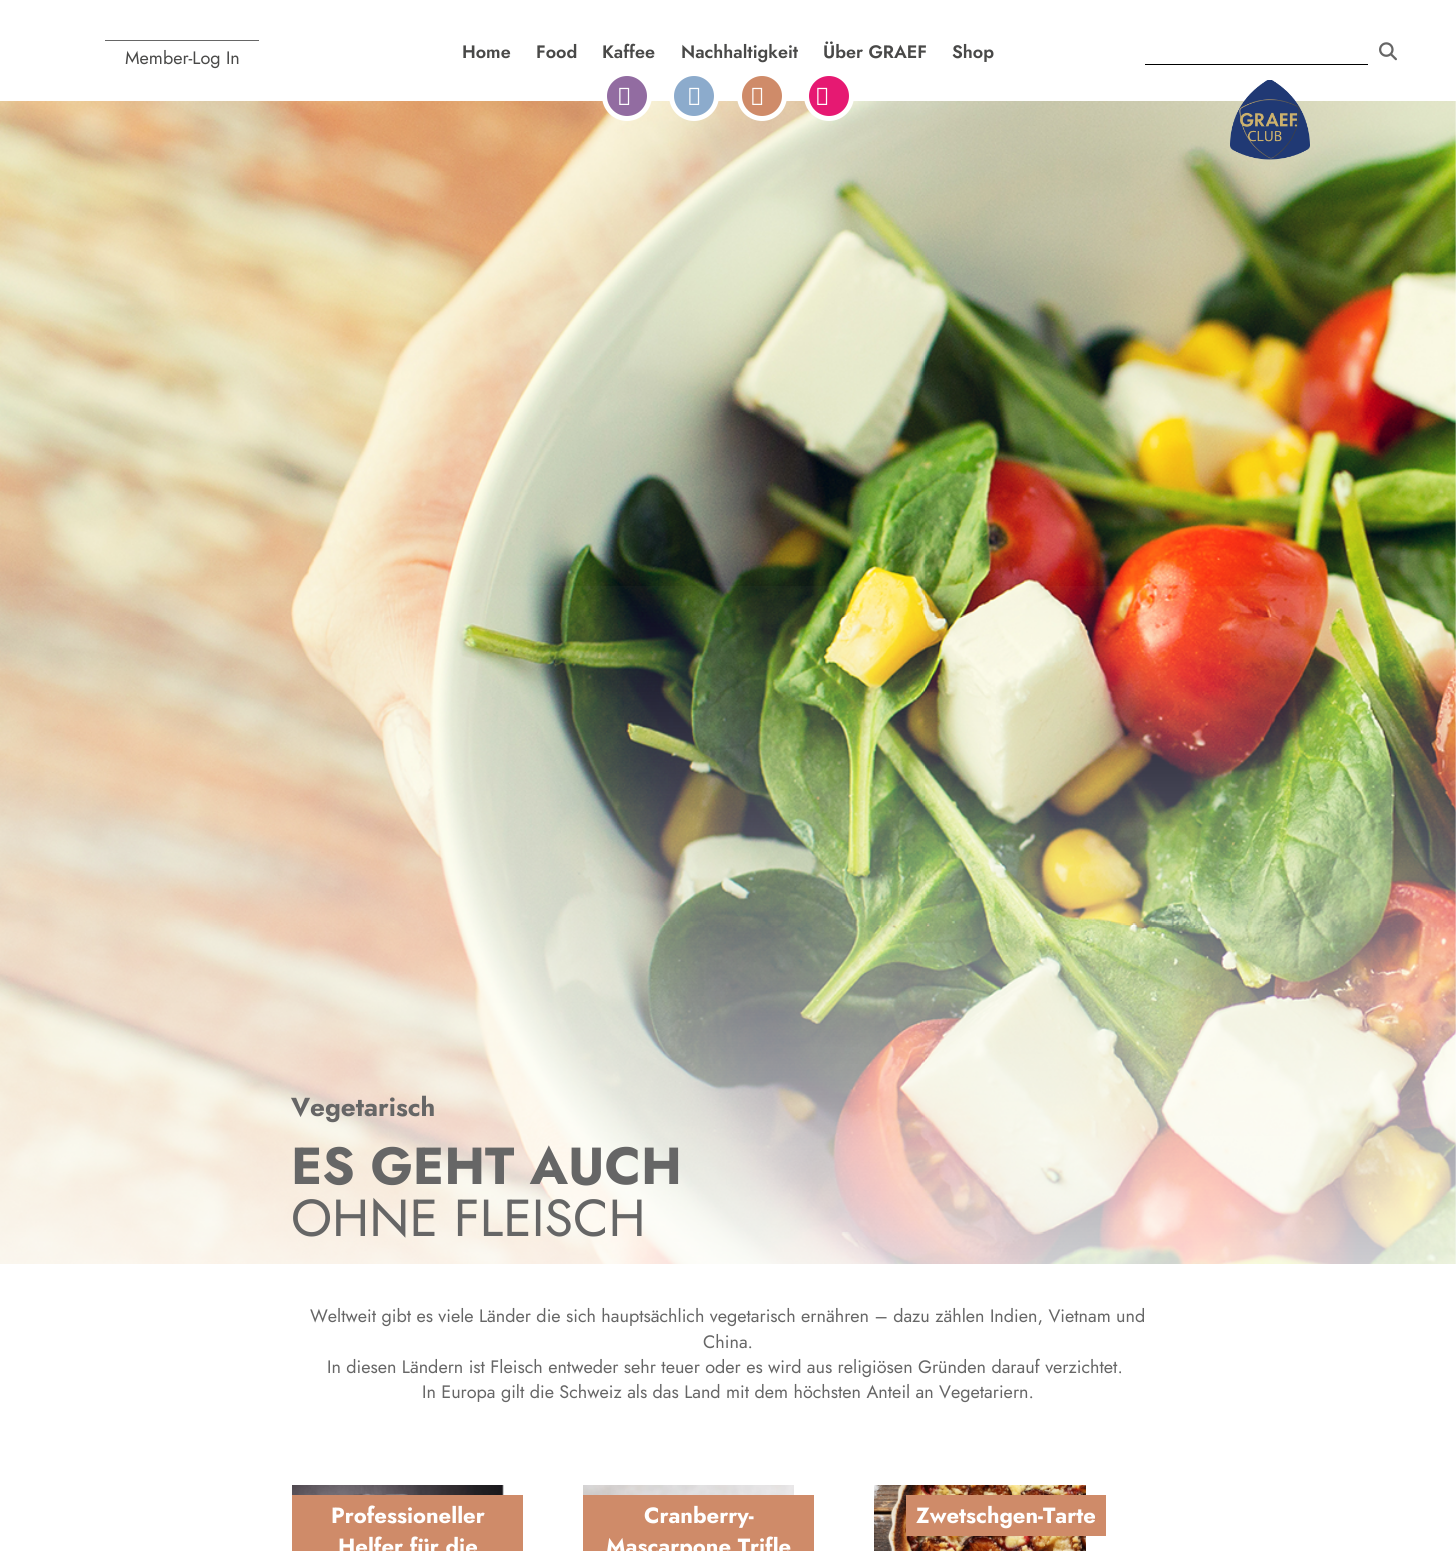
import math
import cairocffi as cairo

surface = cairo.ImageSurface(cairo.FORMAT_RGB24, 1456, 1551)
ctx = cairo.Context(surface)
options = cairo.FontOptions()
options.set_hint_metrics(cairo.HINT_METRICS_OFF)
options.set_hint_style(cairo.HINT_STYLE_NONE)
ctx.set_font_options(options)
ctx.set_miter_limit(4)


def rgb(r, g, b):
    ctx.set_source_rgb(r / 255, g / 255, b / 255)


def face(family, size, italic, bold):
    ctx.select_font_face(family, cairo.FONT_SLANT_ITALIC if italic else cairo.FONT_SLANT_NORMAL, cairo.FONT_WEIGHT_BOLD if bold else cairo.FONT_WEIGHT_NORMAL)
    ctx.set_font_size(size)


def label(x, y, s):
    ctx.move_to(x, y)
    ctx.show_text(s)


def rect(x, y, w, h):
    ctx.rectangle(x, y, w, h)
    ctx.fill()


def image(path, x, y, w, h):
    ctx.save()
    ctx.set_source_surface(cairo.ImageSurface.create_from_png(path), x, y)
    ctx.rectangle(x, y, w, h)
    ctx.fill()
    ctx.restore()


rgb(255, 255, 255)
ctx.paint()
rgb(102, 102, 102)
rect(105, 40, 154, 1)
face('Jost', 18, 0, 0)
rgb(73, 73, 72)
label(125, 64, 'Member-Log In')
face('Jost SemiBold', 18, 0, 0)
label(462, 58, 'Home')
label(536, 58, 'Food')
label(602, 58, 'Kaffee')
label(681, 58, 'Nachhaltigkeit')
label(823, 58, 'Über GRAEF')
label(952, 58, 'Shop')
image('image0.png', 1379, 42, 18, 19)
rgb(0, 0, 0)
rect(1145, 64, 223, 1)
image('image6.png', 0, 101, 1456, 1163)
rgb(146, 108, 161)
ctx.arc(627, 96, 22.5, 0, 2 * math.pi)
ctx.fill_preserve()
rgb(255, 255, 255)
ctx.set_line_width(5)
ctx.stroke()
image('image1.png', 619, 87, 11, 18)
rgb(140, 171, 204)
ctx.arc(694, 96, 22.5, 0, 2 * math.pi)
ctx.fill_preserve()
rgb(255, 255, 255)
ctx.stroke()
image('image2.png', 689, 87, 11, 18)
rgb(207, 139, 105)
ctx.arc(762, 96, 22.5, 0, 2 * math.pi)
ctx.fill_preserve()
rgb(255, 255, 255)
ctx.stroke()
image('image3.png', 752, 87, 11, 18)
rgb(230, 25, 114)
ctx.arc(829, 96, 22.5, 0, 2 * math.pi)
ctx.fill_preserve()
rgb(255, 255, 255)
ctx.stroke()
image('image4.png', 817, 87, 11, 18)
image('image5.png', 1230, 80, 80, 80)
gradient = cairo.LinearGradient(728, 567, 728, 1264)
gradient.add_color_stop_rgba(0, 1, 1, 1, 0)
gradient.add_color_stop_rgba(1, 1, 1, 1, 0.8)
ctx.set_source(gradient)
rect(0, 586, 1456, 678)
face('Jost', 26, 0, 1)
rgb(102, 102, 102)
label(291, 1116, 'Vegetarisch')
face('Jost', 52, 0, 1)
label(291, 1184, 'ES GEHT AUCH')
face('Jost', 52, 0, 0)
label(291, 1236, 'OHNE FLEISCH')
face('Jost', 18, 0, 0)
label(310, 1322, 'Weltweit gibt es viele Länder die sich hauptsächlich vegetarisch ernähren – dazu zählen Indien, Vietnam und')
label(703, 1348, 'China.')
label(327, 1373, 'In diesen Ländern ist Fleisch entweder sehr teuer oder es wird aus religiösen Gründen darauf verzichtet.')
label(422, 1398, 'In Europa gilt die Schweiz als das Land mit dem höchsten Anteil an Vegetariern.')
image('image7.png', 292, 1485, 212, 10)
rgb(207, 139, 105)
rect(292, 1495, 231, 56)
face('Jost', 22, 0, 1)
rgb(255, 255, 255)
label(331, 1523, 'Professioneller')
label(338, 1554, 'Helfer für die')
image('image8.png', 583, 1485, 211, 10)
rgb(207, 139, 105)
rect(583, 1495, 231, 56)
rgb(255, 255, 255)
label(644, 1523, 'Cranberry-')
label(606, 1554, 'Mascarpone Trifle')
image('image9.png', 874, 1485, 212, 66)
rgb(207, 139, 105)
rect(906, 1495, 200, 41)
rgb(255, 255, 255)
label(916, 1523, 'Zwetschgen-Tarte')
surface.write_to_png('render.png')
